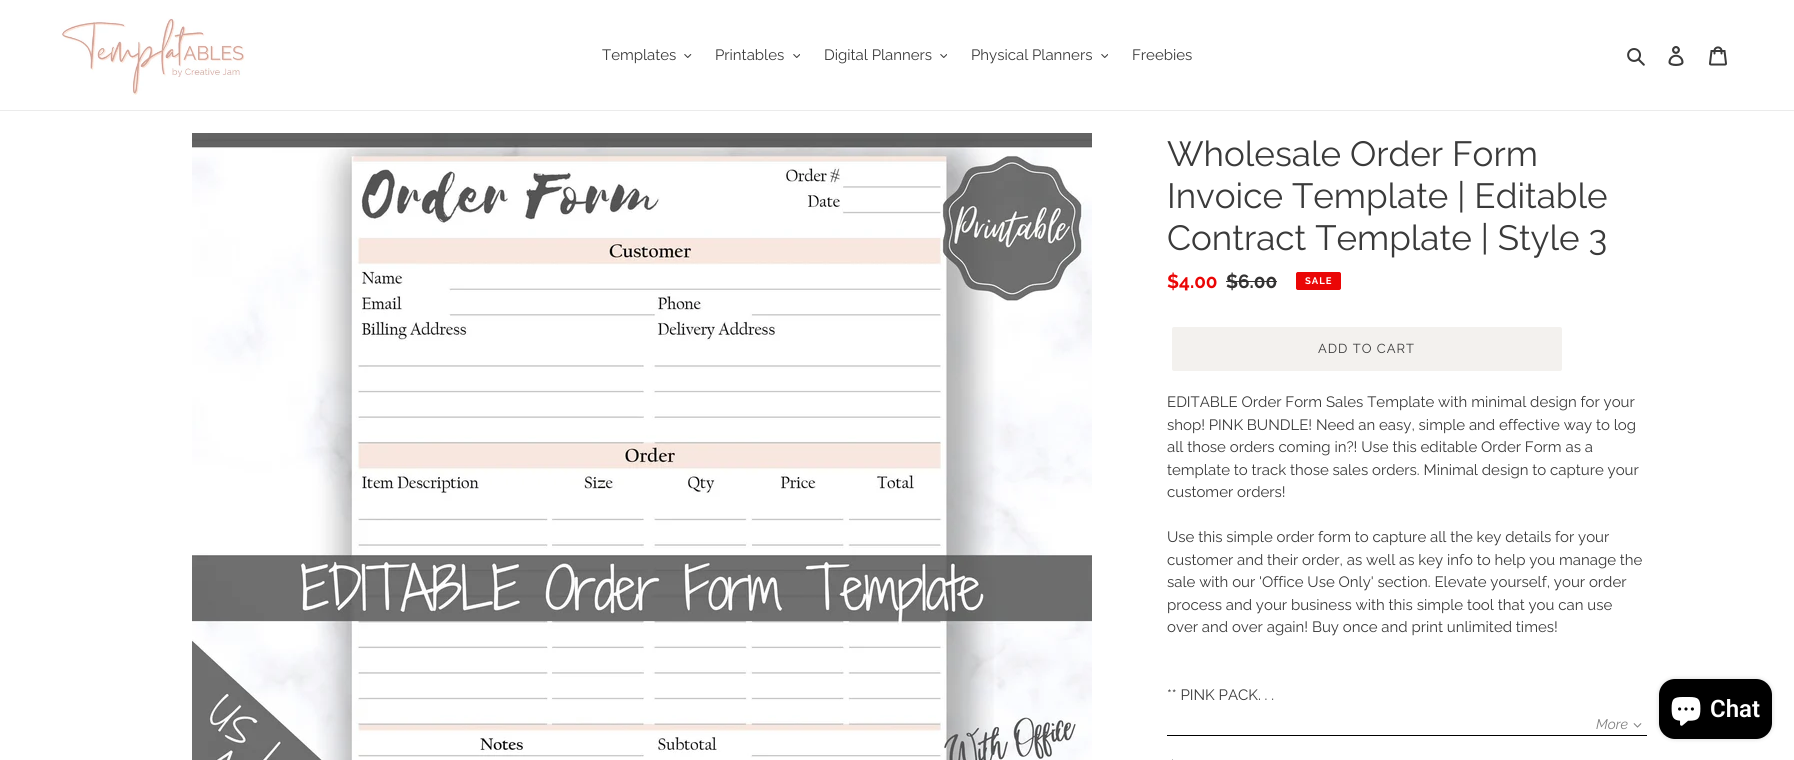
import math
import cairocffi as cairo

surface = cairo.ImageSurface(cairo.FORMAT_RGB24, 1794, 760)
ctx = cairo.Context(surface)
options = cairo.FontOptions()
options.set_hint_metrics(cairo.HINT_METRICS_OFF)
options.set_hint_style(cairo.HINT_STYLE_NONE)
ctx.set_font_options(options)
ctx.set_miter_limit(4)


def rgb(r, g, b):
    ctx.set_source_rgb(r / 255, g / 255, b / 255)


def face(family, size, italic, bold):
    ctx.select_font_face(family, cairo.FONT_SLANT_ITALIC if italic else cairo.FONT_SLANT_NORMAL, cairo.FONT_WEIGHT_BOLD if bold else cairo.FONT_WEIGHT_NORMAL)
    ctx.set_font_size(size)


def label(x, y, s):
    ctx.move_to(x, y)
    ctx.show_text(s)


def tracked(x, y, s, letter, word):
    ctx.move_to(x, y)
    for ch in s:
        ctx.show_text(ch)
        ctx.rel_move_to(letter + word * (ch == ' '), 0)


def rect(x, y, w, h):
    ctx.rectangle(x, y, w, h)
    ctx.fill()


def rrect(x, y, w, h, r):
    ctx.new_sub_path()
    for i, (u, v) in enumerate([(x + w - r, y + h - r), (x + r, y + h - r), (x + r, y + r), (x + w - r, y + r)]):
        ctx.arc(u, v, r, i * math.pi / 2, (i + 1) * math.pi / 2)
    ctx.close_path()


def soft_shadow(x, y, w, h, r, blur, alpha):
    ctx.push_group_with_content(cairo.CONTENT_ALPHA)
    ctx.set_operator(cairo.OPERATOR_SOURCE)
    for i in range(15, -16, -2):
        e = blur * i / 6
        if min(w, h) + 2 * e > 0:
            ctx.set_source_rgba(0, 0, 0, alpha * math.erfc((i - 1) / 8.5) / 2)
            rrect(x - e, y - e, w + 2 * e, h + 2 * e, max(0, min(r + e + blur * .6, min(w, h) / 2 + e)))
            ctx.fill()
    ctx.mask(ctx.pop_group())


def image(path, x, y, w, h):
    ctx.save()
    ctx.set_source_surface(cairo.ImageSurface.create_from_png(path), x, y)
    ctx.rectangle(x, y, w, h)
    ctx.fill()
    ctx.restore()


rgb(255, 255, 255)
ctx.paint()
rgb(235, 235, 235)
rect(0, 110, 1794, 1)
image('image0.png', 61, 18, 184, 77)
face('Raleway', 15, 0, 0)
rgb(58, 58, 58)
label(602, 60, 'Templates')
image('image1.png', 684, 54, 8, 4)
label(715, 60, 'Printables')
image('image2.png', 793, 54, 7, 4)
label(824, 60, 'Digital Planners')
image('image2.png', 940, 54, 7, 4)
label(971, 60, 'Physical Planners')
image('image2.png', 1101, 54, 7, 4)
label(1132, 60, 'Freebies')
image('image3.png', 1627, 48, 18, 18)
image('image4.png', 1668, 46, 16, 20)
image('image5.png', 1709, 46, 18, 20)
image('image6.png', 192, 133, 900, 627)
face('Raleway', 35, 0, 0)
label(1167, 166, 'Wholesale Order Form')
label(1167, 208, 'Invoice Template | Editable')
label(1167, 250, 'Contract Template | Style 3')
face('Raleway', 19, 0, 1)
rgb(234, 6, 6)
label(1167, 288, '$4.00')
rgb(51, 50, 50)
label(1226, 288, '$6.00')
rect(1226, 281, 51, 1)
rgb(234, 6, 6)
rrect(1296.5, 272.5, 44, 17, 1.5)
ctx.fill_preserve()
ctx.set_line_width(1)
ctx.stroke()
face('Raleway', 9.5, 0, 1)
rgb(255, 255, 255)
tracked(1305, 284, 'SALE', 1, 0)
rgb(243, 241, 238)
rrect(1172, 327, 390, 44, 2)
ctx.fill()
face('Raleway', 13, 0, 0)
rgb(58, 58, 58)
tracked(1318, 353, 'ADD TO CART', 1, 0)
face('Raleway', 15, 0, 0)
label(1167, 407, 'EDITABLE Order Form Sales Template with minimal design for your')
label(1167, 430, 'shop! PINK BUNDLE! Need an easy, simple and effective way to log')
label(1167, 452, 'all those orders coming in?! Use this editable Order Form as a')
label(1167, 475, 'template to track those sales orders. Minimal design to capture your')
label(1167, 497, 'customer orders!')
label(1167, 542, 'Use this simple order form to capture all the key details for your')
label(1167, 565, 'customer and their order, as well as key info to help you manage the')
label(1167, 587, 'sale with our \'Office Use Only\' section. Elevate yourself, your order')
label(1167, 610, 'process and your business with this simple tool that you can use')
label(1167, 632, 'over and over again! Buy once and print unlimited times!')
label(1167, 700, '** PINK PACK. . .')
rgb(0, 0, 0)
rect(1167, 735, 480, 1)
face('Raleway', 14, 1, 0)
rgb(128, 128, 128)
label(1596, 729, 'More')
image('image7.png', 1633, 723, 9, 5)
rgb(189, 189, 189)
rect(1172, 759, 1, 1)
rgb(0, 0, 0)
soft_shadow(1659, 679, 113, 60, 16, 2.5, 0.15)
rgb(0, 0, 0)
rrect(1659, 679, 113, 60, 16)
ctx.fill()
image('image8.png', 1671, 697, 30, 29)
face('Roboto SemiBold', 24, 0, 0)
rgb(255, 255, 255)
label(1710, 717, 'Chat')
surface.write_to_png('render.png')
